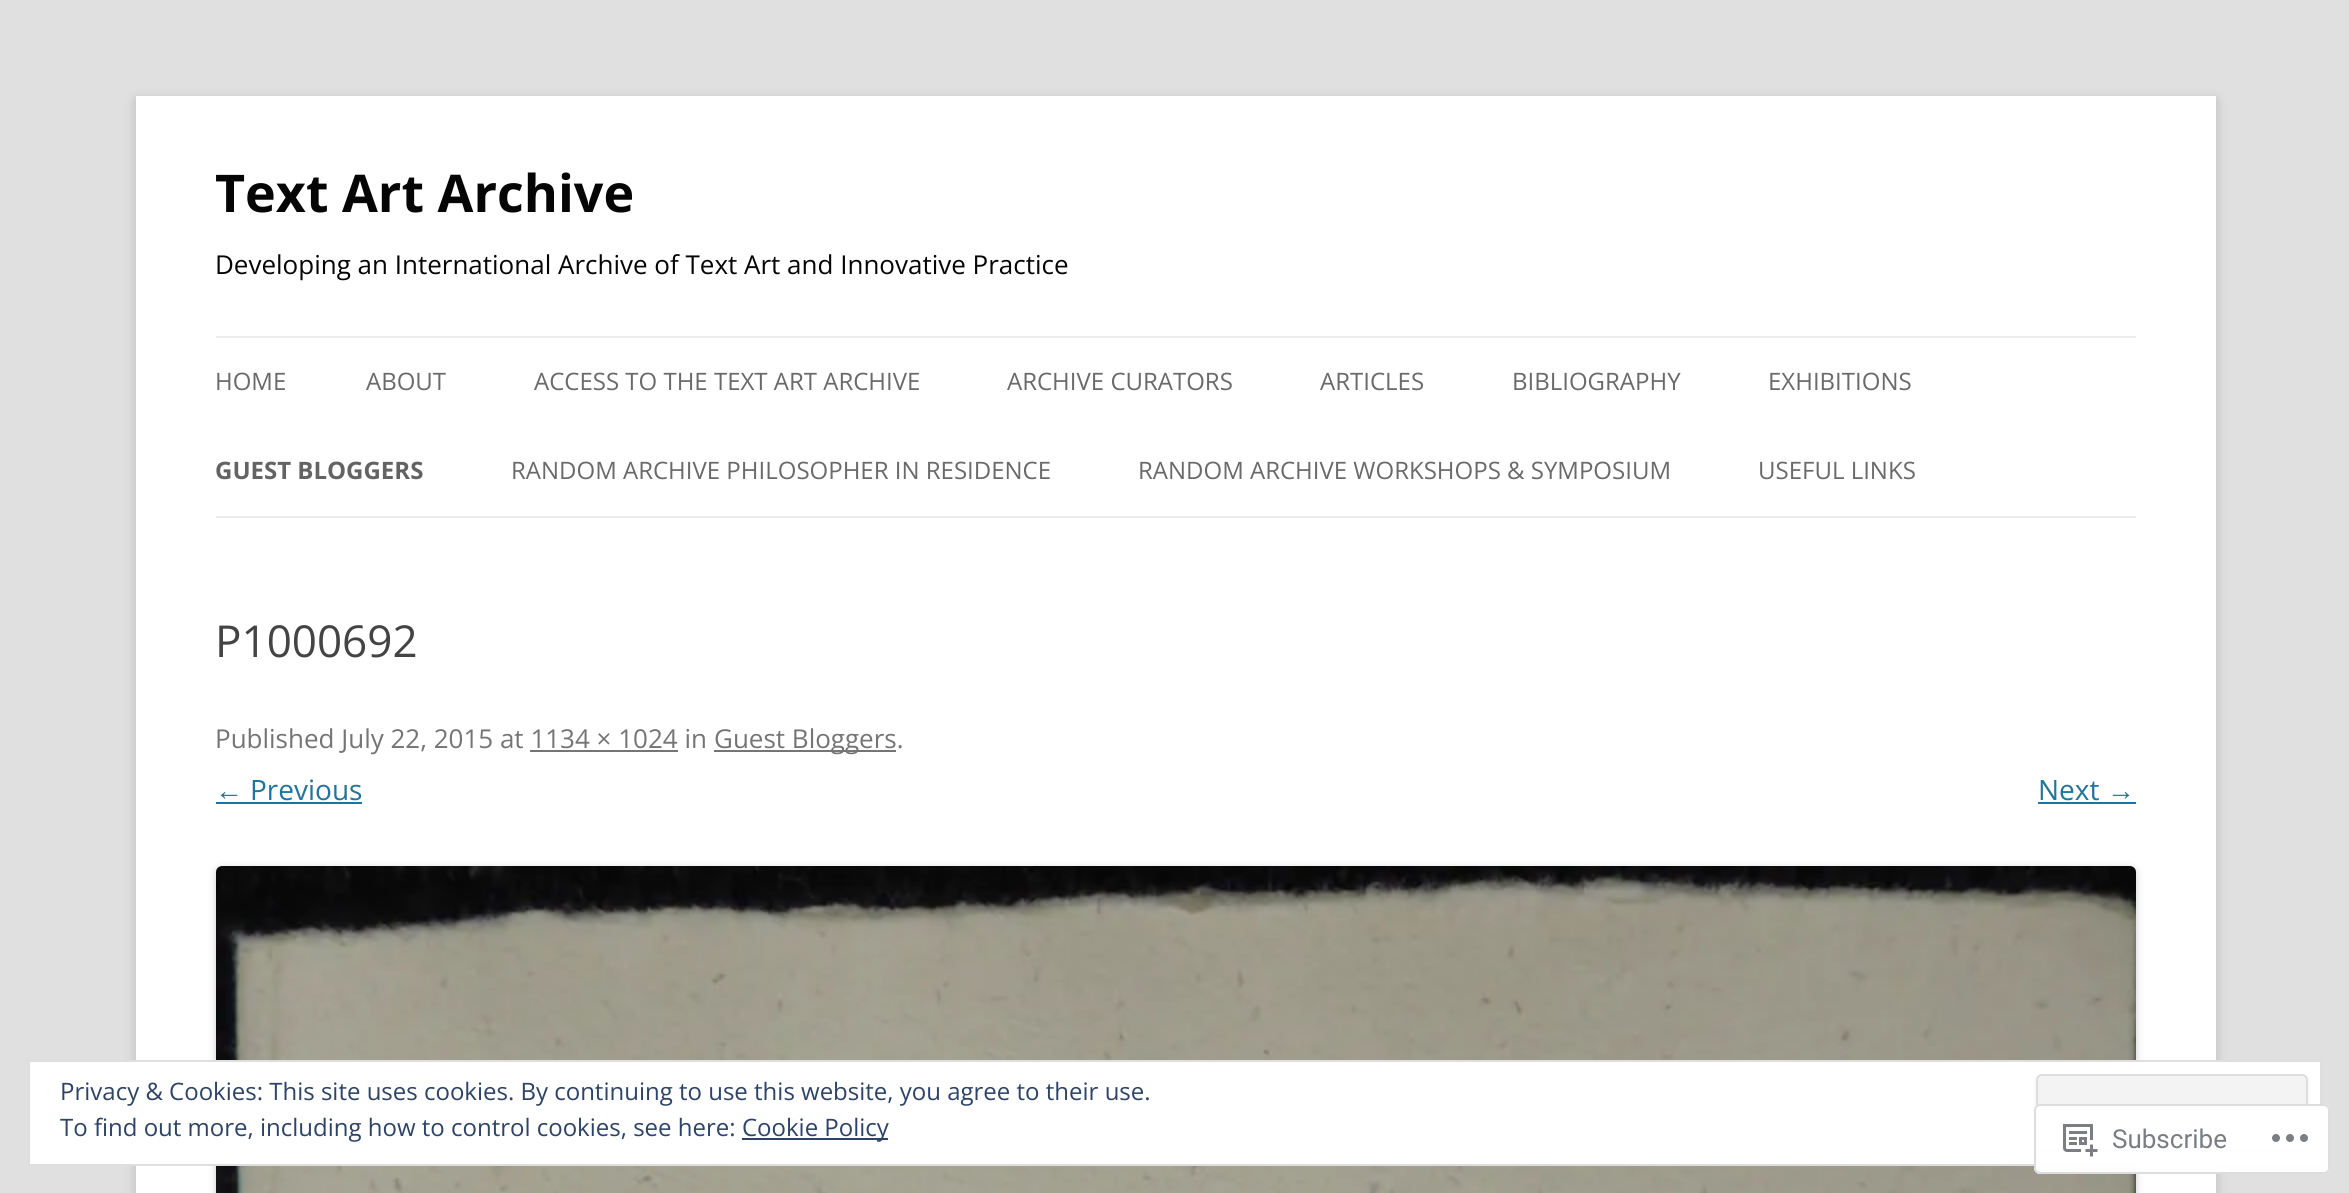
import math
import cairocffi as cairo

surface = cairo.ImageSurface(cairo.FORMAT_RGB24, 2349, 1193)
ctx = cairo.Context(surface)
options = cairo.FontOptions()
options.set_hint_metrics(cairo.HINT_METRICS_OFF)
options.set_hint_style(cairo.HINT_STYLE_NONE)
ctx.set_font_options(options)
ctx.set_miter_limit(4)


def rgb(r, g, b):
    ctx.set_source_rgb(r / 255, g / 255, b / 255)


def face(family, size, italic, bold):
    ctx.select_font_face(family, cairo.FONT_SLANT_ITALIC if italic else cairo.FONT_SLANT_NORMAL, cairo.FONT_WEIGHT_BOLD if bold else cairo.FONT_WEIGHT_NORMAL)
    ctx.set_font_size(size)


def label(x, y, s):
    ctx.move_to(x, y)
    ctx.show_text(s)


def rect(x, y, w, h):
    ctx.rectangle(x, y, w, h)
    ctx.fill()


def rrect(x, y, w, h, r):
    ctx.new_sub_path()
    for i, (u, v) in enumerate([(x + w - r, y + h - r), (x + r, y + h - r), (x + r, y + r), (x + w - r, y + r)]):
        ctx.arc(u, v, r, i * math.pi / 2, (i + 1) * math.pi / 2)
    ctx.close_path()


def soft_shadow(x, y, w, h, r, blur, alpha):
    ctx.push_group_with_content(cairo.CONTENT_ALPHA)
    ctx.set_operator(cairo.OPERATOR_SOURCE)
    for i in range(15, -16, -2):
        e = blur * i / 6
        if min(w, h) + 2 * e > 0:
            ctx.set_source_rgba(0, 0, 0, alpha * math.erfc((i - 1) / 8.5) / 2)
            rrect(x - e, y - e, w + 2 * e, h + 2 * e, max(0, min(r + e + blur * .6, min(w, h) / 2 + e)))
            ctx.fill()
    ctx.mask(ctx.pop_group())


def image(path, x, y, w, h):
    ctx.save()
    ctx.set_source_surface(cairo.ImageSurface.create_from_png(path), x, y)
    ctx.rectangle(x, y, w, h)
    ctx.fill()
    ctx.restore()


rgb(224, 224, 224)
ctx.paint()
rgb(100, 100, 100)
soft_shadow(136, 100, 2080, 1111, 0, 6, 0.3)
rgb(255, 255, 255)
rect(136, 96, 2080, 1097)
face('Open Sans', 52, 0, 1)
rgb(5, 5, 5)
label(215, 212, 'Text Art Archive')
face('Open Sans', 26, 0, 0)
label(215, 274, 'Developing an International Archive of Text Art and Innovative Practice')
rgb(237, 237, 237)
rect(216, 336, 1920, 2)
rect(216, 516, 1920, 2)
face('Open Sans', 24, 0, 0)
rgb(106, 106, 106)
label(215, 390, 'HOME')
label(366, 390, 'ABOUT')
label(534, 390, 'ACCESS TO THE TEXT ART ARCHIVE')
label(1007, 390, 'ARCHIVE CURATORS')
label(1320, 390, 'ARTICLES')
label(1512, 390, 'BIBLIOGRAPHY')
label(1768, 390, 'EXHIBITIONS')
face('Open Sans', 24, 0, 1)
rgb(99, 99, 99)
label(215, 479, 'GUEST BLOGGERS')
face('Open Sans', 24, 0, 0)
rgb(106, 106, 106)
label(511, 479, 'RANDOM ARCHIVE PHILOSOPHER IN RESIDENCE')
label(1138, 479, 'RANDOM ARCHIVE WORKSHOPS & SYMPOSIUM')
label(1758, 479, 'USEFUL LINKS')
face('Open Sans', 44, 0, 0)
rgb(68, 68, 68)
label(215, 657, 'P1000692')
face('Open Sans', 26, 0, 0)
rgb(117, 117, 117)
label(215, 748, 'Published July 22, 2015 at 1134 × 1024 in')
rect(714, 750, 182, 2)
label(714, 748, 'Guest Bloggers.')
rect(530, 750, 148, 2)
face('Liberation Sans', 28, 0, 0)
rgb(33, 117, 155)
label(215, 800, '←')
rect(216, 802, 146, 2)
face('Open Sans', 28, 0, 0)
label(250, 800, 'Previous')
label(2038, 800, 'Next')
face('Liberation Sans', 28, 0, 0)
label(2107, 800, '→')
rect(2038, 802, 98, 2)
rgb(0, 0, 0)
soft_shadow(216, 868, 1920, 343, 6, 4, 0.2)
image('image0.png', 216, 866, 1920, 327)
rgb(255, 255, 255)
ctx.rectangle(29, 1061, 2292, 104)
ctx.fill_preserve()
rgb(222, 222, 222)
ctx.stroke()
face('Open Sans', 24, 0, 0)
rgb(46, 68, 103)
label(60, 1100, 'Privacy & Cookies: This site uses cookies. By continuing to use this website, you agree to their use.')
rgb(64, 64, 64)
soft_shadow(2036, 1076, 272, 78, 6, 2, 0.1)
rgb(243, 243, 243)
rrect(2037, 1075, 270, 76, 5)
ctx.fill_preserve()
rgb(222, 222, 222)
ctx.stroke()
rgb(46, 68, 103)
label(60, 1136, 'To find out more, including how to control cookies, see here:')
rect(742, 1138, 146, 2)
label(742, 1136, 'Cookie Policy')
ctx.set_source_rgba(1, 1, 1, 0.98)
rrect(2034, 1104, 296, 70, 6)
ctx.fill()
rrect(2035, 1105, 294, 68, 5)
ctx.set_source_rgba(0.863, 0.863, 0.871, 0.98)
ctx.stroke()
image('image1.png', 2063, 1124, 35, 33)
face('Roboto', 26, 0, 0)
rgb(122, 126, 132)
label(2112, 1148, 'Subscribe')
image('image2.png', 2272, 1134, 36, 8)
surface.write_to_png('render.png')
